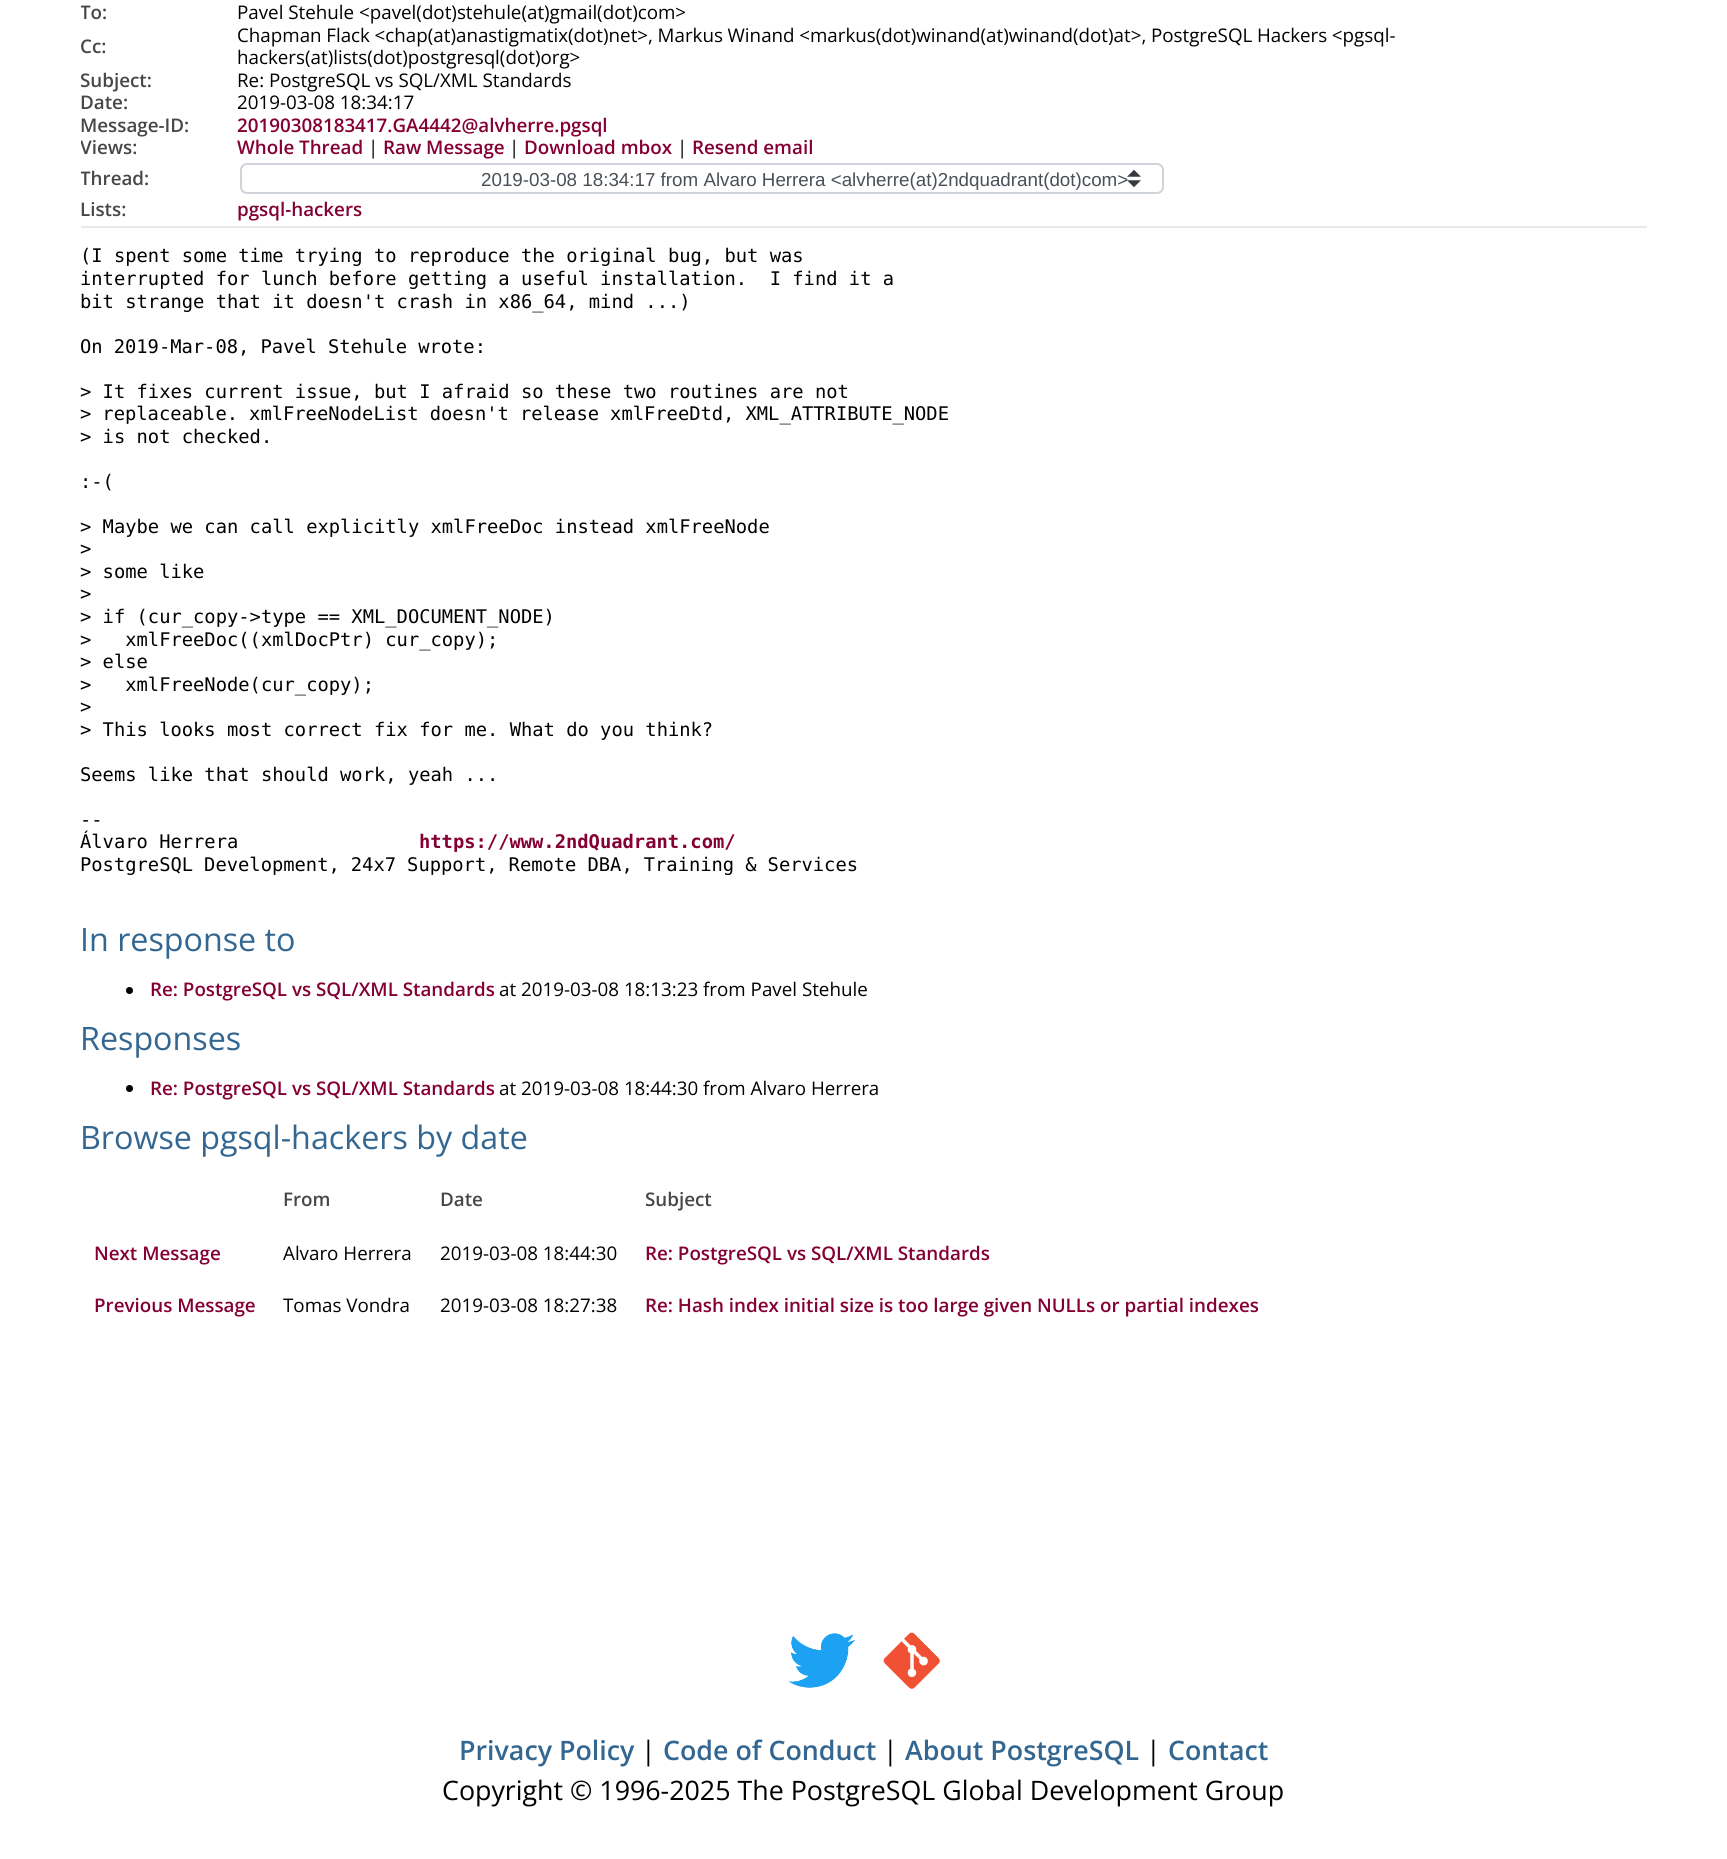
import math
import cairocffi as cairo

surface = cairo.ImageSurface(cairo.FORMAT_RGB24, 1727, 1859)
ctx = cairo.Context(surface)
options = cairo.FontOptions()
options.set_hint_metrics(cairo.HINT_METRICS_OFF)
options.set_hint_style(cairo.HINT_STYLE_NONE)
ctx.set_font_options(options)
ctx.set_miter_limit(4)


def rgb(r, g, b):
    ctx.set_source_rgb(r / 255, g / 255, b / 255)


def face(family, size, italic, bold):
    ctx.select_font_face(family, cairo.FONT_SLANT_ITALIC if italic else cairo.FONT_SLANT_NORMAL, cairo.FONT_WEIGHT_BOLD if bold else cairo.FONT_WEIGHT_NORMAL)
    ctx.set_font_size(size)


def label(x, y, s):
    ctx.move_to(x, y)
    ctx.show_text(s)


def tracked(x, y, s, letter, word):
    ctx.move_to(x, y)
    for ch in s:
        ctx.show_text(ch)
        ctx.rel_move_to(letter + word * (ch == ' '), 0)


def rect(x, y, w, h):
    ctx.rectangle(x, y, w, h)
    ctx.fill()


def rrect(x, y, w, h, r):
    ctx.new_sub_path()
    for i, (u, v) in enumerate([(x + w - r, y + h - r), (x + r, y + h - r), (x + r, y + r), (x + w - r, y + r)]):
        ctx.arc(u, v, r, i * math.pi / 2, (i + 1) * math.pi / 2)
    ctx.close_path()


def image(path, x, y, w, h):
    ctx.save()
    ctx.set_source_surface(cairo.ImageSurface.create_from_png(path), x, y)
    ctx.rectangle(x, y, w, h)
    ctx.fill()
    ctx.restore()


rgb(255, 255, 255)
ctx.paint()
rgb(231, 234, 232)
rect(81, 226, 1566, 2)
ctx.save()
ctx.rectangle(81, 0, 1566, 226)
ctx.clip()
face('Open Sans SemiBold', 18.78, 0, 0)
rgb(71, 71, 71)
label(80, 19, 'To:')
ctx.restore()
face('Open Sans', 18.78, 0, 0)
rgb(0, 0, 0)
label(237, 19, 'Pavel Stehule <pavel(dot)stehule(at)gmail(dot)com>')
face('Open Sans SemiBold', 18.78, 0, 0)
rgb(71, 71, 71)
label(80, 53, 'Cc:')
face('Open Sans', 18.78, 0, 0)
rgb(0, 0, 0)
tracked(237, 42, 'Chapman Flack <chap(at)anastigmatix(dot)net>, Markus Winand <markus(dot)winand(at)winand(dot)at>, PostgreSQL Hackers <pgsql-', 0, -0.25)
label(237, 64, 'hackers(at)lists(dot)postgresql(dot)org>')
ctx.save()
ctx.rectangle(81, 0, 1566, 226)
ctx.clip()
face('Open Sans SemiBold', 18.78, 0, 0)
rgb(71, 71, 71)
label(80, 87, 'Subject:')
ctx.restore()
label(237, 87, 'Re: PostgreSQL vs SQL/XML Standards')
face('Open Sans SemiBold', 18.78, 0, 0)
rgb(71, 71, 71)
label(80, 109, 'Date:')
face('Open Sans', 18.78, 0, 0)
rgb(0, 0, 0)
label(237, 109, '2019-03-08 18:34:17')
face('Open Sans SemiBold', 18.78, 0, 0)
rgb(71, 71, 71)
label(80, 132, 'Message-ID:')
rgb(132, 0, 50)
label(237, 132, '20190308183417.GA4442@alvherre.pgsql')
ctx.save()
ctx.rectangle(81, 0, 1566, 226)
ctx.clip()
rgb(71, 71, 71)
label(80, 154, 'Views:')
ctx.restore()
label(237, 154, 'Whole Thread')
face('Open Sans', 18.78, 0, 0)
rgb(0, 0, 0)
label(368, 154, '|')
face('Open Sans SemiBold', 18.78, 0, 0)
rgb(132, 0, 50)
label(383, 154, 'Raw Message')
face('Open Sans', 18.78, 0, 0)
rgb(0, 0, 0)
label(509, 154, '|')
face('Open Sans SemiBold', 18.78, 0, 0)
rgb(132, 0, 50)
label(524, 154, 'Download mbox')
face('Open Sans', 18.78, 0, 0)
rgb(0, 0, 0)
label(677, 154, '|')
face('Open Sans SemiBold', 18.78, 0, 0)
rgb(132, 0, 50)
label(692, 154, 'Resend email')
ctx.save()
ctx.rectangle(81, 0, 1566, 226)
ctx.clip()
rgb(71, 71, 71)
label(80, 185, 'Thread:')
ctx.restore()
image('image0.png', 1127, 170, 14, 17)
rrect(241, 164, 922, 29, 6)
rgb(206, 212, 218)
ctx.stroke()
face('Liberation Sans', 18.78, 0, 0)
rgb(73, 80, 87)
label(481, 186, '2019-03-08 18:34:17 from Alvaro Herrera <alvherre(at)2ndquadrant(dot)com>')
face('Open Sans SemiBold', 18.78, 0, 0)
rgb(71, 71, 71)
label(80, 216, 'Lists:')
rgb(132, 0, 50)
label(237, 216, 'pgsql-hackers')
face('DejaVu Sans Mono', 18.78, 0, 0)
rgb(0, 0, 0)
label(80, 262, '(I spent some time trying to reproduce the original bug, but was')
label(80, 285, 'interrupted for lunch before getting a useful installation.  I find it a')
label(80, 308, 'bit strange that it doesn\'t crash in x86_64, mind ...)')
tracked(80, 353, 'On 2019-Mar-08, Pavel Stehule wrote:', 0, -0.25)
label(80, 398, '> It fixes current issue, but I afraid so these two routines are not')
tracked(80, 420, '> replaceable. xmlFreeNodeList doesn\'t release xmlFreeDtd, XML_ATTRIBUTE_NODE', 0, -0.25)
label(80, 443, '> is not checked.')
label(80, 488, ':-(')
label(80, 533, '> Maybe we can call explicitly xmlFreeDoc instead xmlFreeNode')
label(80, 555, '>')
label(80, 578, '> some like')
label(80, 600, '>')
label(80, 623, '> if (cur_copy->type == XML_DOCUMENT_NODE)')
label(80, 646, '>   xmlFreeDoc((xmlDocPtr) cur_copy);')
label(80, 668, '> else')
label(80, 691, '>   xmlFreeNode(cur_copy);')
label(80, 713, '>')
label(80, 736, '> This looks most correct fix for me. What do you think?')
label(80, 781, 'Seems like that should work, yeah ...')
label(80, 826, '--')
label(80, 848, 'Álvaro Herrera')
face('DejaVu Sans Mono', 18.78, 0, 1)
rgb(132, 0, 50)
label(419, 848, 'https://www.2ndQuadrant.com/')
face('DejaVu Sans Mono', 18.78, 0, 0)
rgb(0, 0, 0)
tracked(80, 871, 'PostgreSQL Development, 24x7 Support, Remote DBA, Training & Services', 0, -0.25)
face('Open Sans', 32.25, 0, 0)
rgb(51, 103, 145)
label(80, 951, 'In response to')
rgb(0, 0, 0)
ctx.new_path()
ctx.arc(129.5, 990.5, 3.5, 0, 2 * math.pi)
ctx.fill()
face('Open Sans SemiBold', 18.78, 0, 0)
rgb(132, 0, 50)
label(150, 996, 'Re: PostgreSQL vs SQL/XML Standards')
face('Open Sans', 18.78, 0, 0)
rgb(0, 0, 0)
label(499, 996, 'at 2019-03-08 18:13:23 from Pavel Stehule')
face('Open Sans', 32.25, 0, 0)
rgb(51, 103, 145)
label(80, 1050, 'Responses')
rgb(0, 0, 0)
ctx.new_path()
ctx.arc(129.5, 1088.5, 3.5, 0, 2 * math.pi)
ctx.fill()
face('Open Sans SemiBold', 18.78, 0, 0)
rgb(132, 0, 50)
label(150, 1095, 'Re: PostgreSQL vs SQL/XML Standards')
face('Open Sans', 18.78, 0, 0)
rgb(0, 0, 0)
label(499, 1095, 'at 2019-03-08 18:44:30 from Alvaro Herrera')
face('Open Sans', 32.25, 0, 0)
rgb(51, 103, 145)
label(80, 1149, 'Browse pgsql-hackers by date')
face('Open Sans SemiBold', 18.78, 0, 0)
rgb(71, 71, 71)
label(283, 1206, 'From')
label(440, 1206, 'Date')
label(645, 1206, 'Subject')
rgb(132, 0, 50)
label(94, 1260, 'Next Message')
face('Open Sans', 18.78, 0, 0)
rgb(0, 0, 0)
label(283, 1260, 'Alvaro Herrera')
label(440, 1260, '2019-03-08 18:44:30')
face('Open Sans SemiBold', 18.78, 0, 0)
rgb(132, 0, 50)
label(645, 1260, 'Re: PostgreSQL vs SQL/XML Standards')
label(94, 1312, 'Previous Message')
face('Open Sans', 18.78, 0, 0)
rgb(0, 0, 0)
label(283, 1312, 'Tomas Vondra')
label(440, 1312, '2019-03-08 18:27:38')
face('Open Sans SemiBold', 18.78, 0, 0)
rgb(132, 0, 50)
label(645, 1312, 'Re: Hash index initial size is too large given NULLs or partial indexes')
image('image1.png', 788, 1633, 67, 55)
image('image2.png', 883, 1632, 57, 57)
face('Open Sans SemiBold', 26.8, 0, 0)
rgb(51, 103, 145)
label(459, 1760, 'Privacy Policy')
face('Open Sans', 26.8, 0, 0)
rgb(0, 0, 0)
label(641, 1760, '|')
face('Open Sans SemiBold', 26.8, 0, 0)
rgb(51, 103, 145)
label(663, 1760, 'Code of Conduct')
face('Open Sans', 26.8, 0, 0)
rgb(0, 0, 0)
label(883, 1760, '|')
face('Open Sans SemiBold', 26.8, 0, 0)
rgb(51, 103, 145)
label(905, 1760, 'About PostgreSQL')
face('Open Sans', 26.8, 0, 0)
rgb(0, 0, 0)
label(1146, 1760, '|')
face('Open Sans SemiBold', 26.8, 0, 0)
rgb(51, 103, 145)
label(1168, 1760, 'Contact')
face('Open Sans', 26.8, 0, 0)
rgb(0, 0, 0)
label(442, 1800, 'Copyright © 1996-2025 The PostgreSQL Global Development Group')
surface.write_to_png('render.png')
